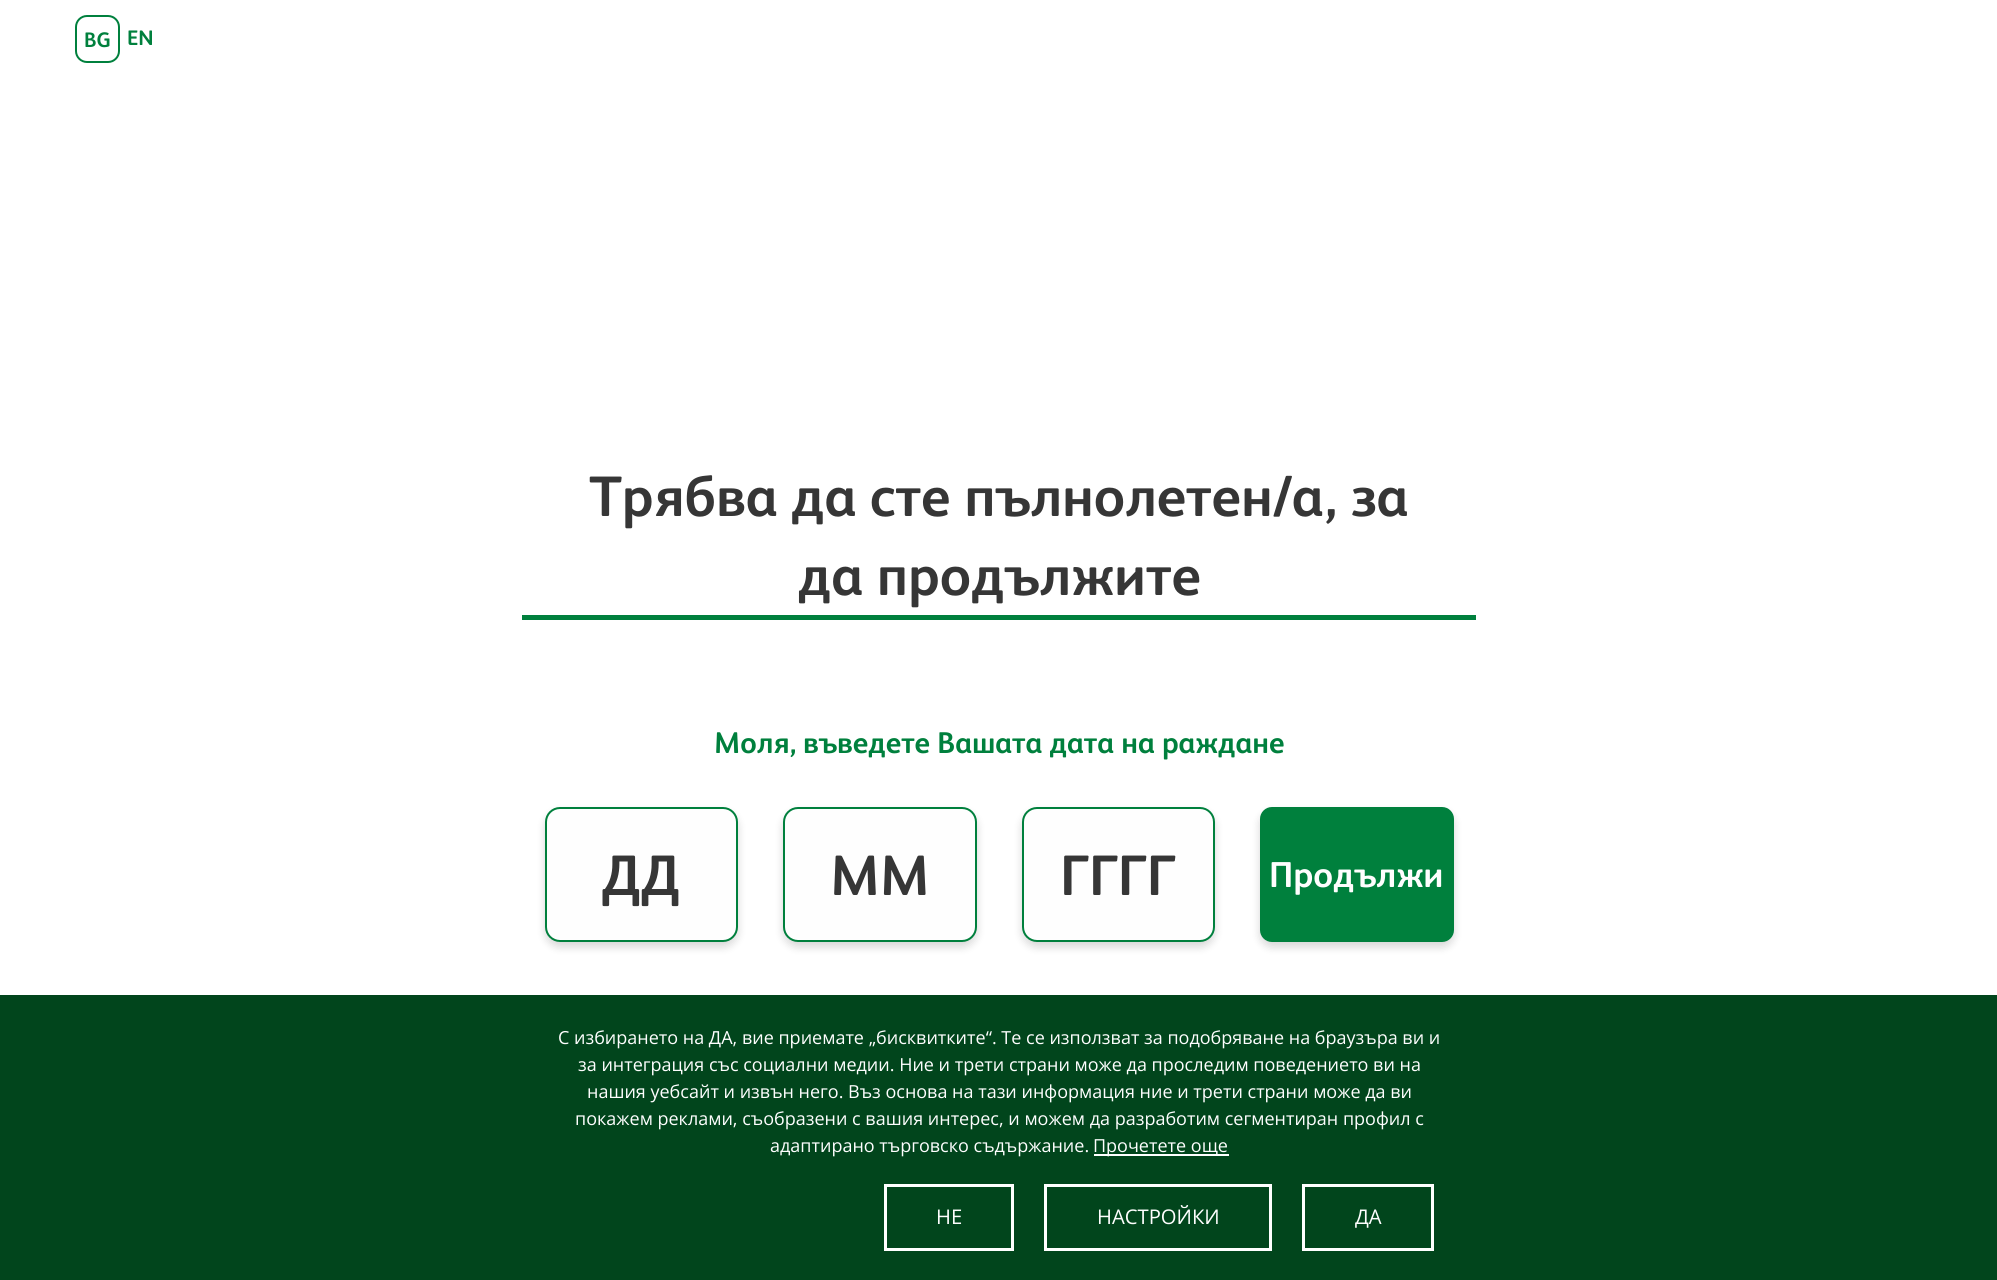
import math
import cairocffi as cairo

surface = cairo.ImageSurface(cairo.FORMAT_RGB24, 1997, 1280)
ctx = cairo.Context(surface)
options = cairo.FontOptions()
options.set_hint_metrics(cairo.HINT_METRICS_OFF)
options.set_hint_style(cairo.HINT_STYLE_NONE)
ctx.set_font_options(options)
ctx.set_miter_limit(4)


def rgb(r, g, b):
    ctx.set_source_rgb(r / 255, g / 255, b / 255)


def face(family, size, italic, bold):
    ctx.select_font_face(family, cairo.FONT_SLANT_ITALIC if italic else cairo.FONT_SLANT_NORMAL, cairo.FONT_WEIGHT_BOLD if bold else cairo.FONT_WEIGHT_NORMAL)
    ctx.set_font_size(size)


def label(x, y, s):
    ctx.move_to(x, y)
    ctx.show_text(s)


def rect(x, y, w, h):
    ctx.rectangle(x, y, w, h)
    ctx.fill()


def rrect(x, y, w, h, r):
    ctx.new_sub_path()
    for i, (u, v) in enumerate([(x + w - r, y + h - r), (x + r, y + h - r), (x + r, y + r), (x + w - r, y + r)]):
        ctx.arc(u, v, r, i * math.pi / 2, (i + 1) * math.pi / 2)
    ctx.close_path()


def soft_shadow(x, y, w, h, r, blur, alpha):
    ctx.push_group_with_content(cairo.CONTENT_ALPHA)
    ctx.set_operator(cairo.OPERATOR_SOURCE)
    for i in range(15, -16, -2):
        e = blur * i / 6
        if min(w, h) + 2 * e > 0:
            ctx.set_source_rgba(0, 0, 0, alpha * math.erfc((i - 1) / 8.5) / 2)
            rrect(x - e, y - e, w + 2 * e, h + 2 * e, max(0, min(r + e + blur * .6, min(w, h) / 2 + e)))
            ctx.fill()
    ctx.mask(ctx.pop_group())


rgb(255, 255, 255)
ctx.paint()
rrect(76, 16, 43, 46, 11)
rgb(0, 128, 61)
ctx.stroke()
face('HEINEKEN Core', 21, 0, 1)
label(84, 47, 'BG')
label(127, 45, 'EN')
rect(522, 615, 954, 5)
face('HEINEKEN Core', 57, 0, 1)
rgb(54, 54, 54)
label(589, 516, 'Трябва да сте пълнолетен/а, за')
label(798, 595, 'да продължите')
face('HEINEKEN Core', 30, 0, 1)
rgb(0, 128, 61)
label(714, 753, 'Моля, въведете Вашата дата на раждане')
rgb(0, 0, 0)
soft_shadow(545, 812, 193, 135, 15, 4.5, 0.16)
rgb(254, 254, 254)
rrect(546, 808, 191, 133, 14)
ctx.fill_preserve()
rgb(0, 128, 61)
ctx.stroke()
face('HEINEKEN Core', 57, 0, 1)
rgb(54, 54, 54)
label(602, 895, 'ДД')
rgb(0, 0, 0)
soft_shadow(783, 812, 194, 135, 15, 4.5, 0.16)
rgb(254, 254, 254)
rrect(784, 808, 192, 133, 14)
ctx.fill_preserve()
rgb(0, 128, 61)
ctx.stroke()
rgb(54, 54, 54)
label(830, 895, 'ММ')
rgb(0, 0, 0)
soft_shadow(1022, 812, 193, 135, 15, 4.5, 0.16)
rgb(254, 254, 254)
rrect(1023, 808, 191, 133, 14)
ctx.fill_preserve()
rgb(0, 128, 61)
ctx.stroke()
rgb(54, 54, 54)
label(1060, 895, 'ГГГГ')
rgb(0, 0, 0)
soft_shadow(1260, 812, 194, 135, 12, 4.5, 0.16)
rgb(0, 128, 61)
rrect(1261, 808, 192, 133, 11)
ctx.fill_preserve()
ctx.stroke()
face('HEINEKEN Core', 36, 0, 1)
rgb(254, 254, 254)
label(1269, 887, 'Продължи')
rgb(1, 69, 28)
rect(0, 995, 1997, 285)
face('Open Sans', 18, 0, 0)
rgb(254, 254, 254)
label(558, 1044, 'С избирането на ДА, вие приемате „бисквитките“. Те се използват за подобряване на браузъра ви и')
label(578, 1071, 'за интеграция със социални медии. Ние и трети страни може да проследим поведението ви на')
label(587, 1098, 'нашия уебсайт и извън него. Въз основа на тази информация ние и трети страни може да ви')
label(575, 1125, 'покажем реклами, съобразени с вашия интерес, и можем да разработим сегментиран профил с')
label(770, 1152, 'адаптирано търговско съдържание.')
rgb(255, 255, 255)
rect(1094, 1154, 135, 2)
rgb(254, 254, 254)
label(1093, 1152, 'Прочетете още')
ctx.rectangle(885.5, 1185.5, 127, 64)
rgb(255, 255, 255)
ctx.set_line_width(3)
ctx.stroke()
face('Open Sans', 20.25, 0, 0)
rgb(254, 254, 254)
label(936, 1224, 'НЕ')
ctx.rectangle(1045.5, 1185.5, 225, 64)
rgb(255, 255, 255)
ctx.stroke()
rgb(254, 254, 254)
label(1097, 1224, 'НАСТРОЙКИ')
ctx.rectangle(1303.5, 1185.5, 129, 64)
rgb(255, 255, 255)
ctx.stroke()
rgb(254, 254, 254)
label(1355, 1224, 'ДА')
surface.write_to_png('render.png')
